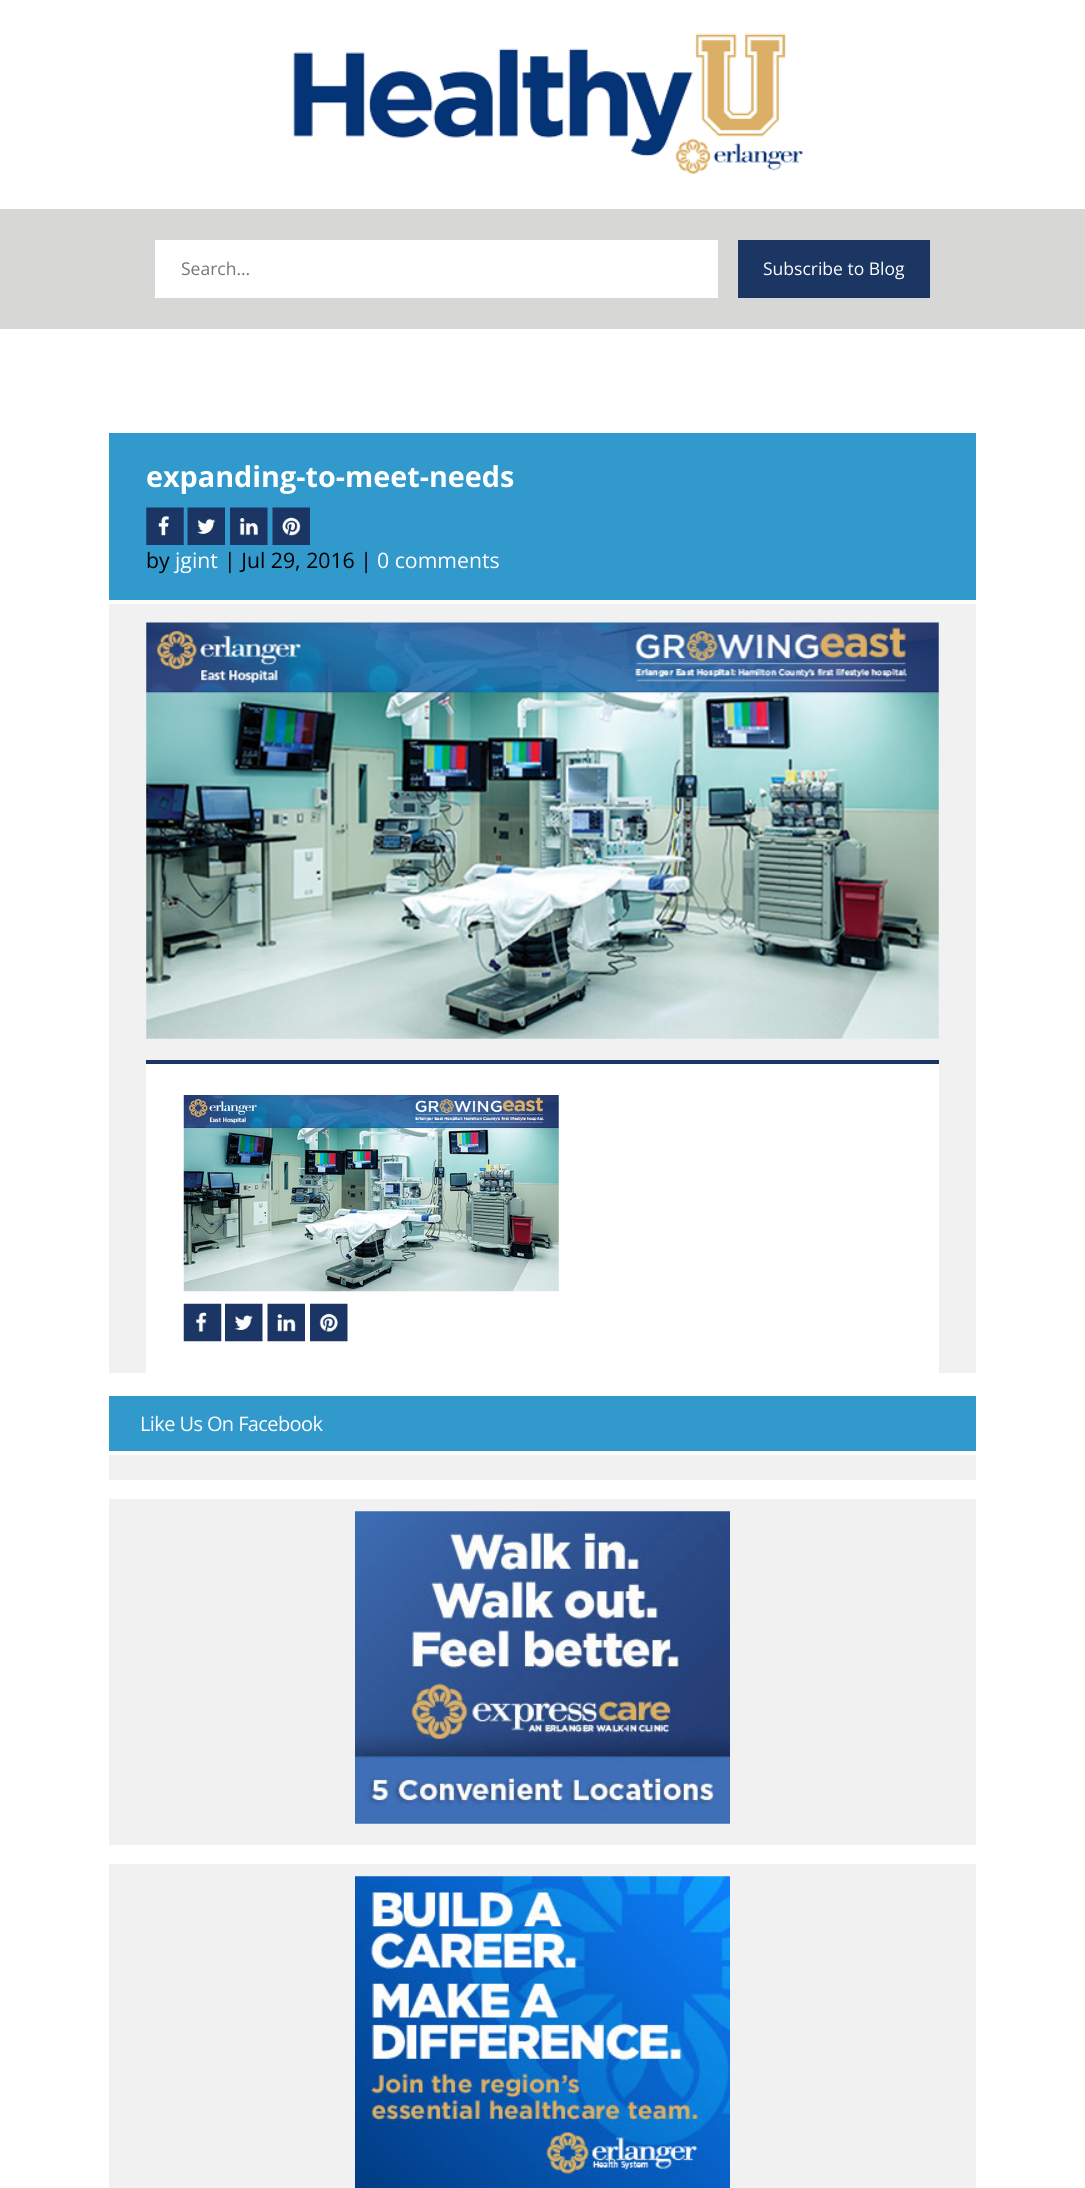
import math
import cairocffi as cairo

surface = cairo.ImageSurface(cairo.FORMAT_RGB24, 1085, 2188)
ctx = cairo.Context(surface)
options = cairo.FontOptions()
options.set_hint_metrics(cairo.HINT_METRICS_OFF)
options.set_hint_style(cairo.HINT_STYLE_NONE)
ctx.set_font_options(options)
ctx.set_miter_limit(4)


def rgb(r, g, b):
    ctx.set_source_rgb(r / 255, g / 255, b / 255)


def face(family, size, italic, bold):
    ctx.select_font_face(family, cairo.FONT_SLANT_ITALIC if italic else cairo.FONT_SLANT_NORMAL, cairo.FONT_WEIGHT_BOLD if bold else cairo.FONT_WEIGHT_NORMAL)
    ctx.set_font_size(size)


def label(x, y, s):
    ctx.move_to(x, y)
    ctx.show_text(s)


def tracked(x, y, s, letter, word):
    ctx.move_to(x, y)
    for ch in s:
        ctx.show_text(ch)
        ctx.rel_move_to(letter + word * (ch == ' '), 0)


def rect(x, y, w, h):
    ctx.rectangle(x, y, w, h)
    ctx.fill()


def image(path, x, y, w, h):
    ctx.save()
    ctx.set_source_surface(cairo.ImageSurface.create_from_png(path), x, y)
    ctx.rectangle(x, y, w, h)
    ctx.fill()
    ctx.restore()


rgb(255, 255, 255)
ctx.paint()
image('image0.png', 293, 33, 510, 141)
rgb(215, 215, 213)
rect(0, 209, 1085, 120)
rgb(255, 255, 255)
rect(155, 240, 563, 58)
face('Open Sans', 17.5, 0, 0)
rgb(117, 117, 117)
label(181, 275, 'Search...')
rgb(28, 54, 100)
rect(738, 240, 192, 58)
rgb(255, 255, 255)
label(763, 275, 'Subscribe to Blog')
rgb(241, 241, 241)
rect(109, 604, 867, 769)
rgb(50, 153, 204)
rect(109, 433, 867, 167)
face('Open Sans', 28.75, 0, 1)
rgb(255, 255, 255)
label(146, 487, 'expanding-to-meet-needs')
image('image1.png', 146, 507, 38, 38)
image('image2.png', 187, 507, 38, 38)
image('image3.png', 230, 507, 38, 38)
image('image4.png', 272, 507, 38, 38)
face('Open Sans', 21.25, 0, 0)
rgb(0, 0, 0)
label(146, 568, 'by')
rgb(255, 255, 255)
label(175, 568, 'jgint')
rgb(0, 0, 0)
label(224, 568, '| Jul 29, 2016 |')
rgb(255, 255, 255)
label(377, 568, '0 comments')
image('image5.png', 146, 622, 793, 417)
rect(146, 1064, 793, 309)
rgb(28, 54, 100)
rect(146, 1060, 793, 4)
image('image6.png', 183, 1095, 376, 197)
image('image7.png', 183, 1303, 39, 39)
image('image8.png', 225, 1303, 38, 39)
image('image9.png', 267, 1303, 38, 39)
image('image10.png', 310, 1303, 38, 39)
rgb(50, 153, 204)
rect(109, 1396, 867, 55)
face('Open Sans', 20, 0, 0)
rgb(255, 255, 255)
tracked(140, 1431, 'Like Us On Facebook', -0.6, 0)
rgb(241, 241, 241)
rect(109, 1455, 867, 25)
rect(109, 1499, 867, 346)
image('image11.png', 355, 1511, 375, 313)
rect(109, 1864, 867, 324)
image('image12.png', 355, 1876, 375, 312)
surface.write_to_png('render.png')
